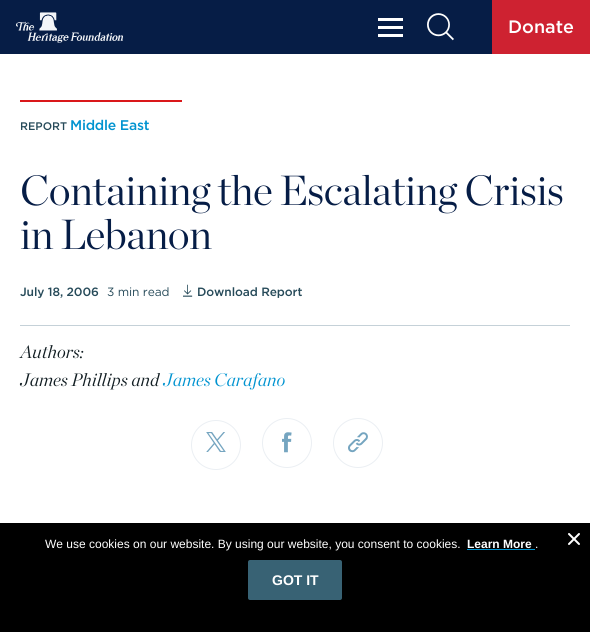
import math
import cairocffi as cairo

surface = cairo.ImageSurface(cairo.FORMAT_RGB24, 590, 632)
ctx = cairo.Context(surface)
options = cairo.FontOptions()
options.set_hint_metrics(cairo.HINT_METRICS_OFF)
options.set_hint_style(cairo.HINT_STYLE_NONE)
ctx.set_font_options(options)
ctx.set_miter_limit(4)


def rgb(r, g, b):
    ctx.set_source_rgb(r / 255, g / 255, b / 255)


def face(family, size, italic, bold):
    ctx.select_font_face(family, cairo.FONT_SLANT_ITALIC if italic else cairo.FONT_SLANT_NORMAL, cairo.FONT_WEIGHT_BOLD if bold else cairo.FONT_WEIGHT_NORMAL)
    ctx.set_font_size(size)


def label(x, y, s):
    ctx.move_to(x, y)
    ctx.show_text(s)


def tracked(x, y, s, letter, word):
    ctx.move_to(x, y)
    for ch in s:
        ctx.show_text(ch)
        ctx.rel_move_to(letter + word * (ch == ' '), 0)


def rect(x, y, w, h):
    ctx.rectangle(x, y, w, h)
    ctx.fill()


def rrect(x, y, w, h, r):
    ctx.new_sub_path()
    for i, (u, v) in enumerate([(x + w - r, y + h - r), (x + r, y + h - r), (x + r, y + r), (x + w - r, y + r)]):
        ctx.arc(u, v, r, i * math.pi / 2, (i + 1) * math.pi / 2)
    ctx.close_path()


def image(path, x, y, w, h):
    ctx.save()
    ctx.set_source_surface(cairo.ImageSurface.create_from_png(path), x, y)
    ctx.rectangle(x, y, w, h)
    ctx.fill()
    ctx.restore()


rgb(255, 255, 255)
ctx.paint()
rgb(6, 29, 70)
rect(0, 0, 492, 54)
image('image0.png', 16, 12, 107, 31)
rgb(255, 255, 255)
rect(378, 18, 25, 3)
rect(378, 26, 25, 3)
rect(378, 34, 25, 3)
image('image1.png', 427, 13, 27, 28)
rgb(206, 34, 49)
rect(492, 0, 98, 54)
face('Gotham Medium', 18, 0, 0)
rgb(255, 255, 255)
label(508, 33, 'Donate')
rgb(218, 24, 26)
rect(20, 100, 162, 2)
face('Gotham Medium', 11, 0, 0)
rgb(38, 74, 89)
label(20, 130, 'REPORT')
face('Gotham Medium', 14, 0, 0)
rgb(0, 147, 208)
tracked(70, 130, 'Middle East', -0.25, 0)
face('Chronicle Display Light', 42, 0, 0)
rgb(6, 29, 70)
tracked(20, 205, 'Containing the Escalating Crisis', -0.5, 0)
tracked(20, 249, 'in Lebanon', -0.5, 0)
face('Gotham Medium', 12, 0, 0)
rgb(38, 74, 89)
tracked(20, 296, 'July 18, 2006', -0.1, 0)
face('Gotham', 12, 0, 0)
tracked(107, 296, '3 min read', -0.1, 0)
image('image2.png', 183, 284, 10, 13)
face('Gotham Medium', 12, 0, 0)
tracked(197, 296, 'Download Report', -0.1, 0)
rgb(197, 209, 216)
rect(20, 325, 550, 1)
face('Chronicle Display Light', 18, 1, 0)
rgb(17, 29, 34)
label(20, 358, 'Authors:')
label(20, 386, 'James Phillips and')
rgb(0, 147, 208)
label(163, 386, 'James Carafano')
ctx.new_path()
ctx.arc(216, 445, 24.5, 0, 2 * math.pi)
rgb(235, 239, 243)
ctx.set_line_width(1)
ctx.stroke()
image('image3.png', 206, 432, 20, 20)
ctx.arc(287, 443, 24.5, 0, 2 * math.pi)
ctx.stroke()
image('image4.png', 282, 432, 10, 21)
ctx.arc(358, 443, 24.5, 0, 2 * math.pi)
ctx.stroke()
image('image5.png', 348, 432, 20, 21)
rgb(0, 0, 0)
rect(0, 523, 590, 109)
face('Liberation Sans', 12, 0, 0)
rgb(255, 255, 255)
label(45, 548, 'We use cookies on our website. By using our website, you consent to cookies.')
face('Liberation Sans', 12, 0, 1)
label(467, 548, 'Learn More')
face('Liberation Sans', 12, 0, 0)
label(535, 548, '.')
rgb(0, 147, 208)
rect(467, 549, 68, 1)
rgb(56, 98, 116)
rrect(248, 560, 94, 40, 2)
ctx.fill()
face('Liberation Sans', 14, 0, 1)
rgb(255, 255, 255)
label(272, 585, 'GOT IT')
image('image6.png', 568, 533, 12, 12)
surface.write_to_png('render.png')
